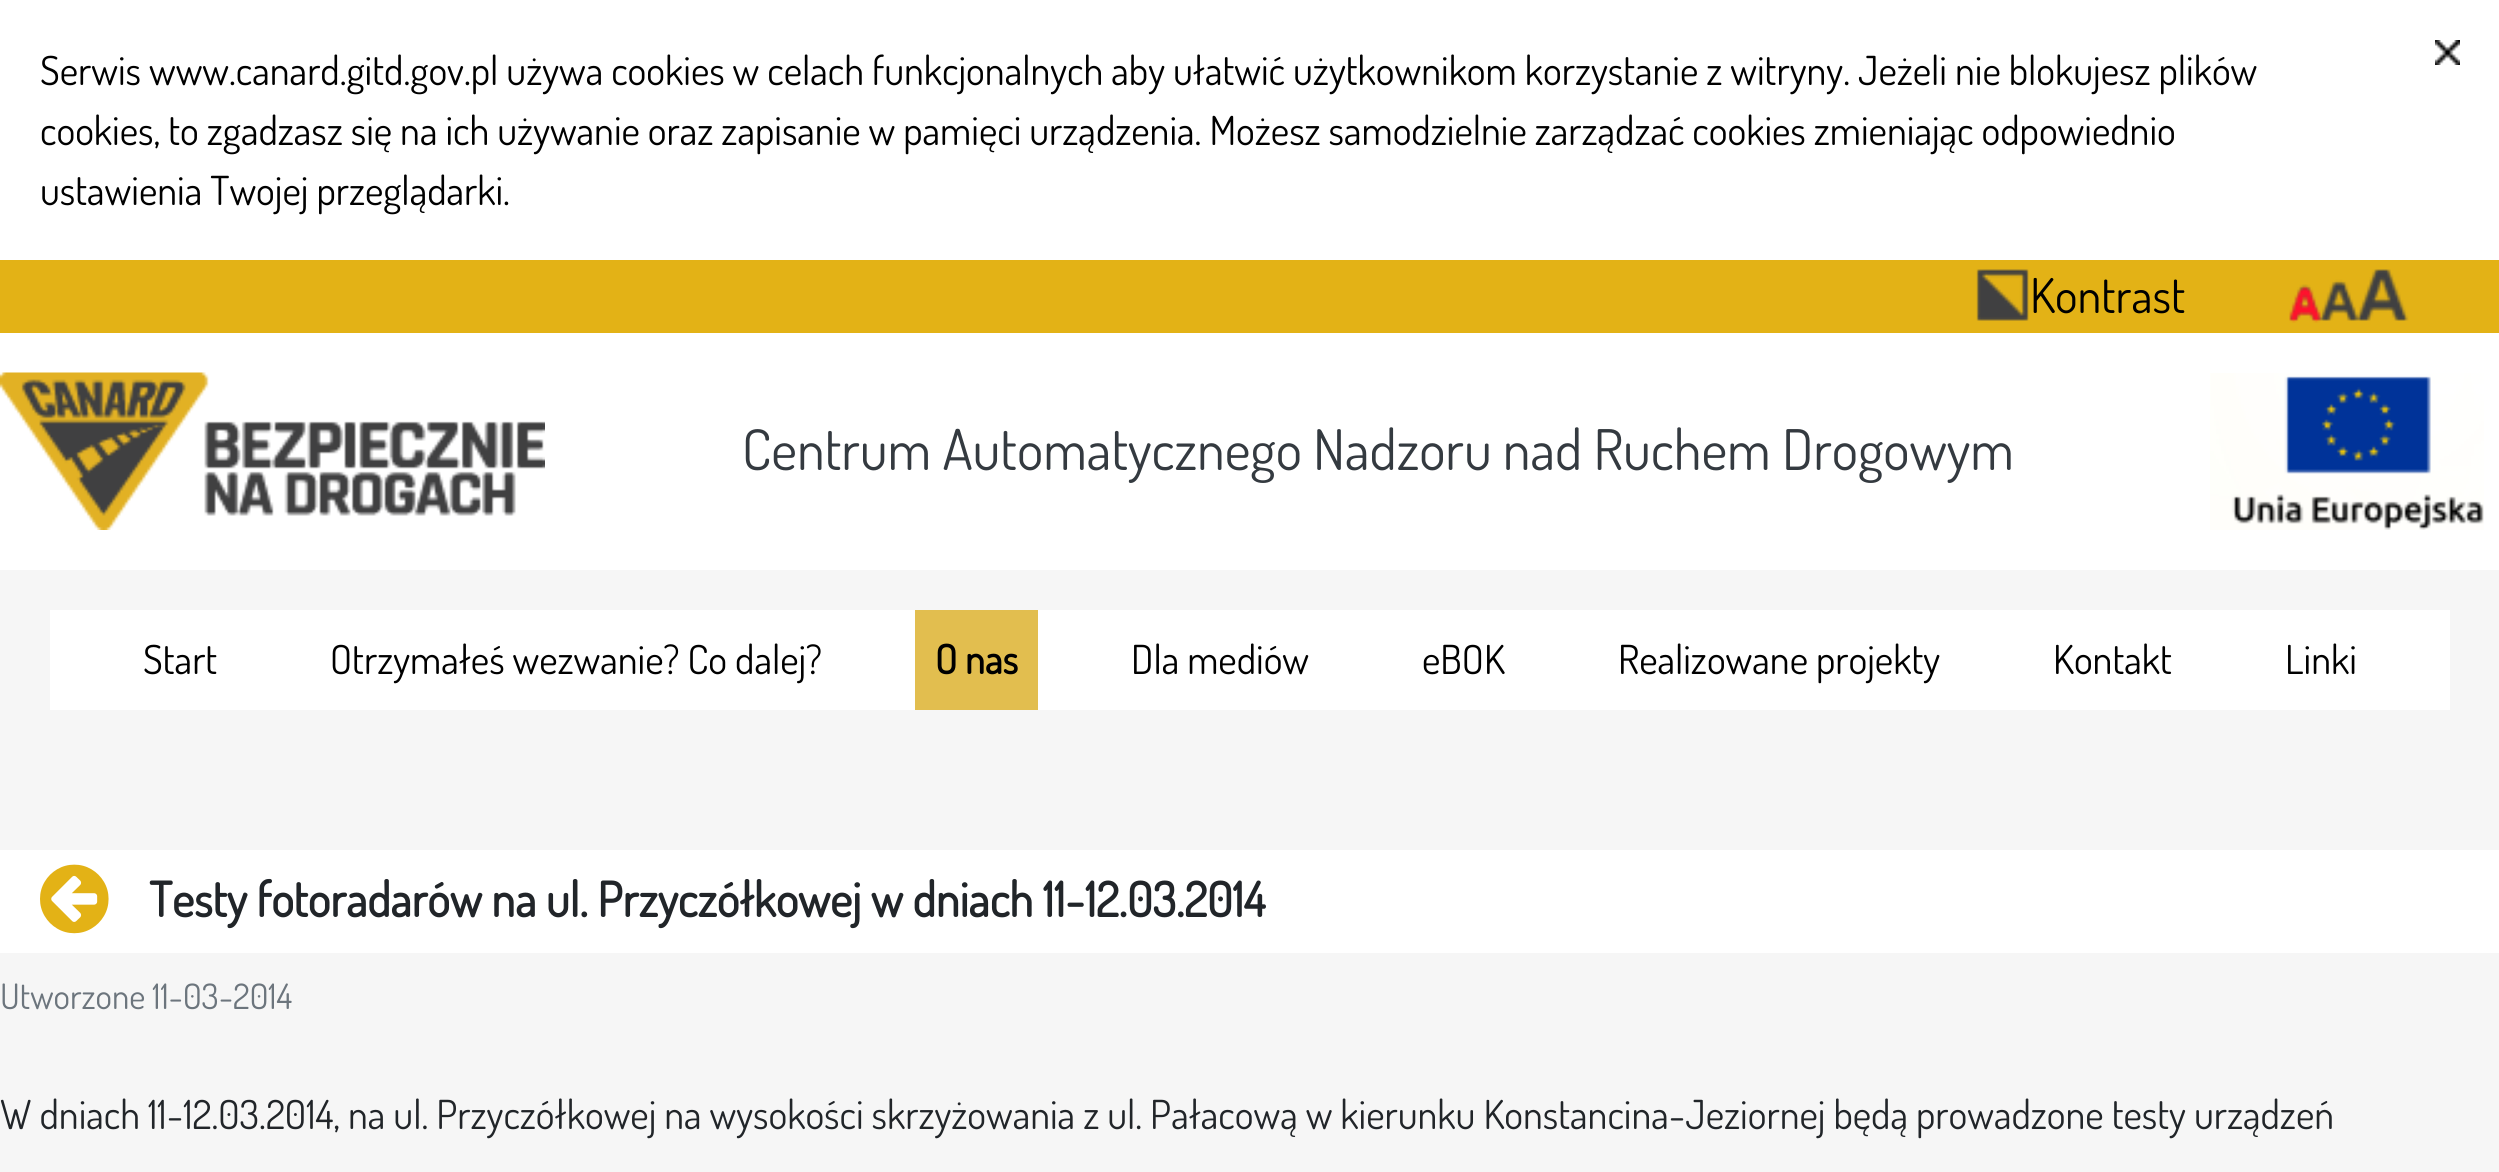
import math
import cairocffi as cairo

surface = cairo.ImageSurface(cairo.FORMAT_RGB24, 2499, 1172)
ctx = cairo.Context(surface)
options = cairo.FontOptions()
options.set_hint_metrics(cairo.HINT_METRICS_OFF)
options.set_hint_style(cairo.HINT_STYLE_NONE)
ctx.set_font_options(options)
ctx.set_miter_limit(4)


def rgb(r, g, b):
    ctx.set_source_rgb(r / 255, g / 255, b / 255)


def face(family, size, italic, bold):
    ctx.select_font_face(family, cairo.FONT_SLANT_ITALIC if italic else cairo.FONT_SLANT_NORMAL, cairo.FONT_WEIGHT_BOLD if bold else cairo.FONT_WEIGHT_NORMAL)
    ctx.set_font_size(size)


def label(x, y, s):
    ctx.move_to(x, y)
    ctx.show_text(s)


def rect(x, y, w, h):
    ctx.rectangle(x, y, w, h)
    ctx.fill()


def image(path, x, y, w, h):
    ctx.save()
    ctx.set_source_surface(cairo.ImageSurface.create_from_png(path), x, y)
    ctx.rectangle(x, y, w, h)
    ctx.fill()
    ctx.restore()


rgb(255, 255, 255)
ctx.paint()
face('Dosis', 40, 0, 0)
rgb(0, 0, 0)
label(40, 85, 'Serwis www.canard.gitd.gov.pl używa cookies w celach funkcjonalnych aby ułatwić użytkownikom korzystanie z witryny. Jeżeli nie blokujesz plików')
label(40, 145, 'cookies, to zgadzasz się na ich używanie oraz zapisanie w pamięci urządzenia. Możesz samodzielnie zarządzać cookies zmieniając odpowiednio')
label(40, 205, 'ustawienia Twojej przeglądarki.')
image('image0.png', 2435, 40, 25, 25)
rgb(227, 178, 22)
rect(0, 260, 2499, 73)
image('image1.png', 1976, 269, 53, 52)
face('Dosis', 48, 0, 0)
rgb(0, 0, 0)
label(2030, 313, 'Kontrast')
image('image2.png', 2289, 269, 120, 54)
image('image3.png', 0, 372, 545, 158)
face('Dosis', 56, 0, 0)
rgb(52, 58, 64)
label(742, 470, 'Centrum Automatycznego Nadzoru nad Ruchem Drogowym')
image('image4.png', 2210, 373, 274, 157)
rgb(246, 246, 246)
rect(0, 570, 2499, 602)
rgb(255, 255, 255)
rect(50, 610, 2400, 100)
face('Dosis', 40, 0, 0)
rgb(0, 0, 0)
label(143, 674, 'Start')
label(330, 674, 'Otrzymałeś wezwanie? Co dalej?')
rgb(226, 190, 79)
rect(915, 610, 123, 100)
face('Dosis', 40, 0, 1)
rgb(0, 0, 0)
label(935, 674, 'O nas')
face('Dosis', 40, 0, 0)
label(1131, 674, 'Dla mediów')
label(1422, 674, 'eBOK')
label(1618, 674, 'Realizowane projekty')
label(2053, 674, 'Kontakt')
label(2285, 674, 'Linki')
rgb(255, 255, 255)
rect(0, 850, 2499, 103)
image('image5.png', 40, 864, 69, 70)
face('Dosis', 48, 0, 1)
rgb(33, 37, 41)
label(149, 917, 'Testy fotoradarów na ul. Przyczółkowej w dniach 11-12.03.2014')
face('Dosis', 35, 0, 0)
rgb(108, 117, 125)
label(0, 1009, 'Utworzone 11-03-2014')
face('Dosis', 40, 0, 0)
rgb(33, 37, 41)
label(0, 1129, 'W dniach 11-12.03.2014, na ul. Przyczółkowej na wysokości skrzyżowania z ul. Pałacową w kierunku Konstancina-Jeziornej będą prowadzone testy urządzeń')
surface.write_to_png('render.png')
